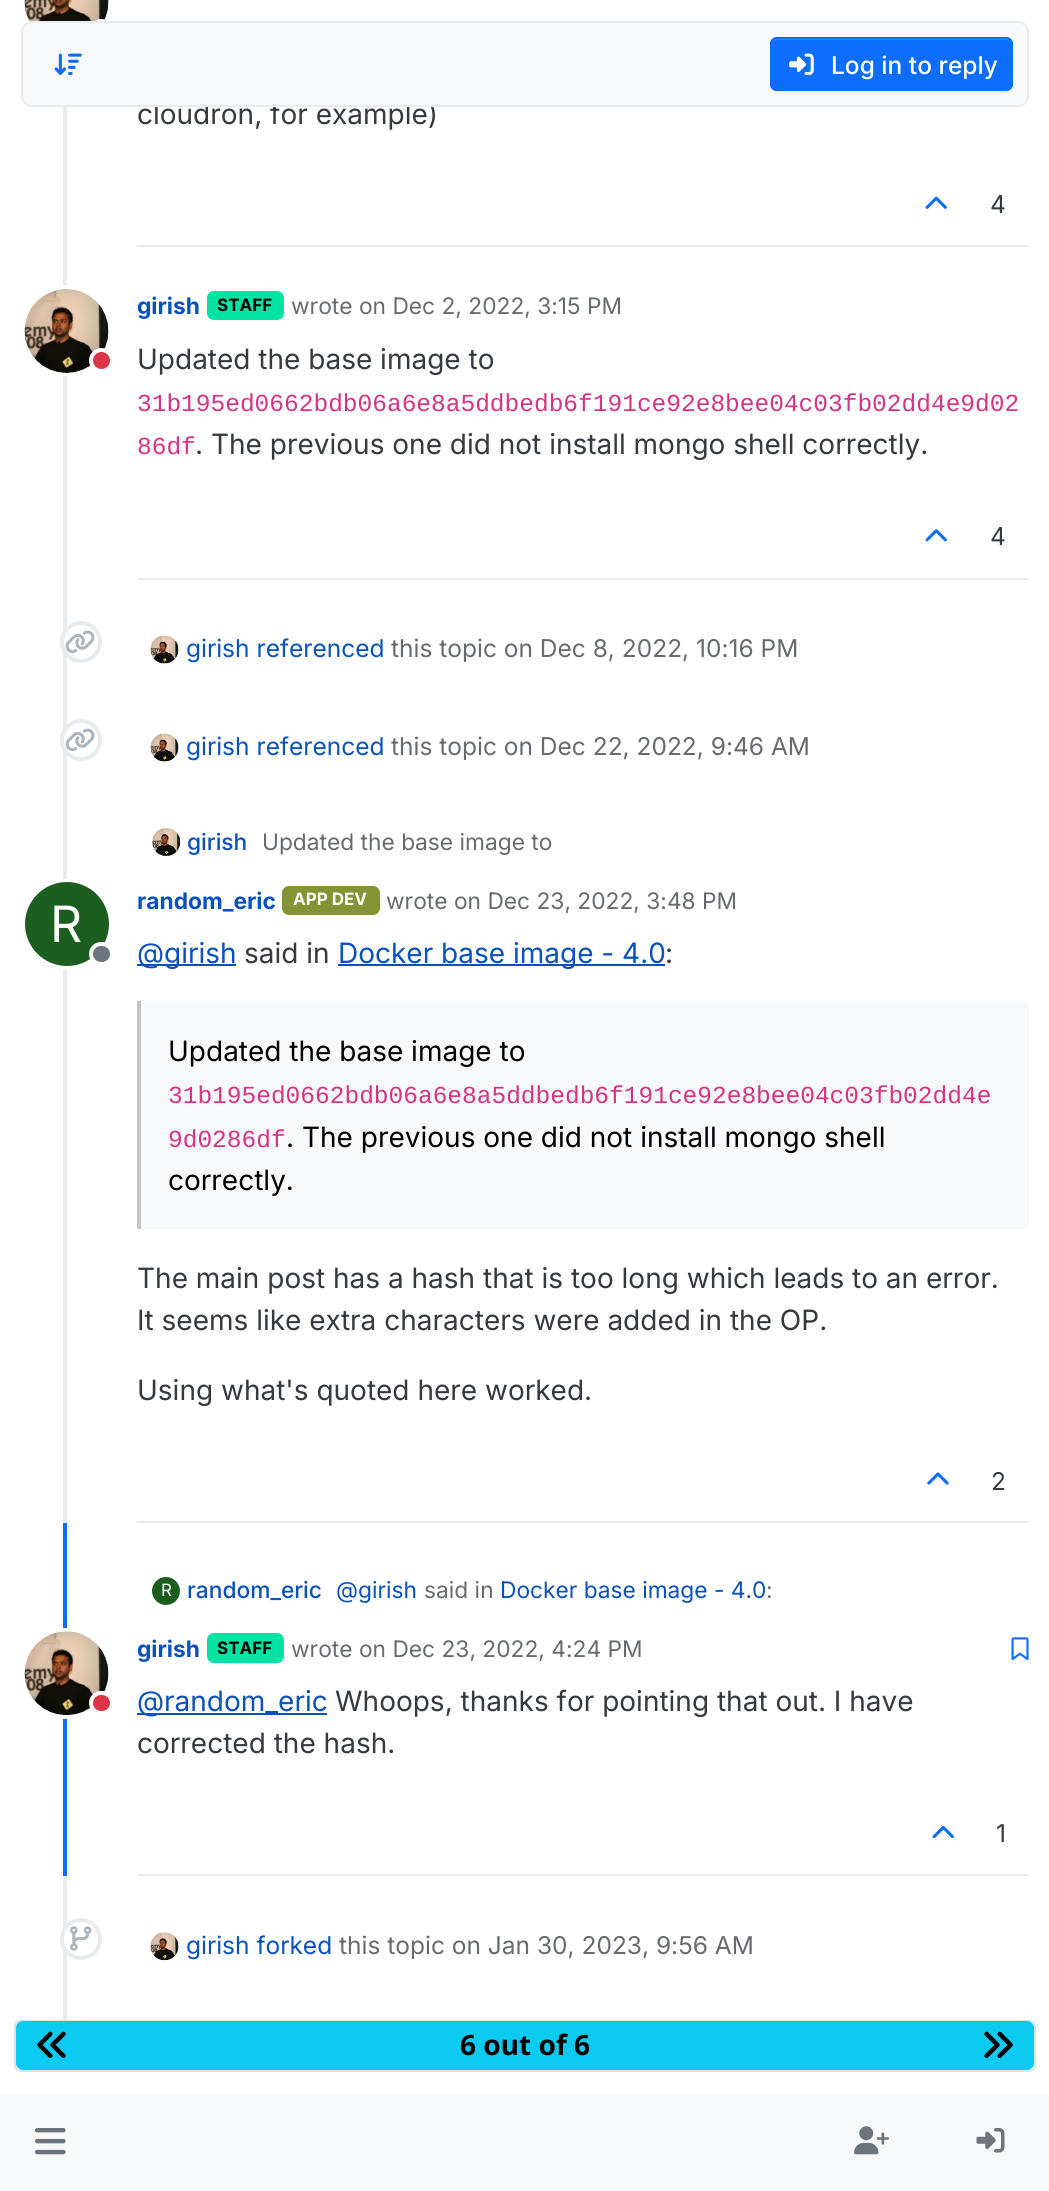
import math
import cairocffi as cairo

surface = cairo.ImageSurface(cairo.FORMAT_RGB24, 1049, 2191)
ctx = cairo.Context(surface)
options = cairo.FontOptions()
options.set_hint_metrics(cairo.HINT_METRICS_OFF)
options.set_hint_style(cairo.HINT_STYLE_NONE)
ctx.set_font_options(options)
ctx.set_miter_limit(4)


def rgb(r, g, b):
    ctx.set_source_rgb(r / 255, g / 255, b / 255)


def face(family, size, italic, bold):
    ctx.select_font_face(family, cairo.FONT_SLANT_ITALIC if italic else cairo.FONT_SLANT_NORMAL, cairo.FONT_WEIGHT_BOLD if bold else cairo.FONT_WEIGHT_NORMAL)
    ctx.set_font_size(size)


def label(x, y, s):
    ctx.move_to(x, y)
    ctx.show_text(s)


def rect(x, y, w, h):
    ctx.rectangle(x, y, w, h)
    ctx.fill()


def rrect(x, y, w, h, r):
    ctx.new_sub_path()
    for i, (u, v) in enumerate([(x + w - r, y + h - r), (x + r, y + h - r), (x + r, y + r), (x + w - r, y + r)]):
        ctx.arc(u, v, r, i * math.pi / 2, (i + 1) * math.pi / 2)
    ctx.close_path()


def soft_shadow(x, y, w, h, r, blur, alpha):
    ctx.push_group_with_content(cairo.CONTENT_ALPHA)
    ctx.set_operator(cairo.OPERATOR_SOURCE)
    for i in range(15, -16, -2):
        e = blur * i / 6
        if min(w, h) + 2 * e > 0:
            ctx.set_source_rgba(0, 0, 0, alpha * math.erfc((i - 1) / 8.5) / 2)
            rrect(x - e, y - e, w + 2 * e, h + 2 * e, max(0, min(r + e + blur * .6, min(w, h) / 2 + e)))
            ctx.fill()
    ctx.mask(ctx.pop_group())


def image(path, x, y, w, h):
    ctx.save()
    ctx.set_source_surface(cairo.ImageSurface.create_from_png(path), x, y)
    ctx.rectangle(x, y, w, h)
    ctx.fill()
    ctx.restore()


rgb(255, 255, 255)
ctx.paint()
image('image2.png', 24, 0, 85, 22)
ctx.arc(101.5, 31.5, 10.5, 0, 2 * math.pi)
rgb(255, 255, 255)
ctx.set_line_width(4)
ctx.stroke()
face('Inter', 28, 0, 0)
rgb(52, 58, 64)
label(137, 124, 'cloudron, for example)')
rgb(248, 249, 250)
rrect(22, 22, 1006, 84, 10)
ctx.fill_preserve()
rgb(233, 236, 239)
ctx.set_line_width(2)
ctx.stroke()
image('image0.png', 54, 53, 28, 22)
rgb(0, 0, 0)
soft_shadow(770, 39, 243, 54, 7, 1, 0.07)
rgb(13, 110, 253)
rrect(770, 37, 243, 54, 7)
ctx.fill()
rgb(49, 132, 253)
ctx.new_path()
ctx.move_to(777, 40)
ctx.line_to(1006, 40)
ctx.curve_to(1009, 40, 1012, 43, 1012, 46)
ctx.curve_to(1012, 43, 1012, 40, 1008, 39)
ctx.line_to(776, 39)
ctx.curve_to(772, 40, 772, 43, 772, 46)
ctx.curve_to(772, 43, 774, 40, 777, 40)
ctx.close_path()
ctx.fill()
rrect(771, 38, 241, 52, 6)
rgb(13, 110, 253)
ctx.stroke()
image('image1.png', 789, 53, 25, 22)
face('Inter Medium', 24.5, 0, 0)
rgb(255, 255, 255)
label(831, 74, 'Log in to reply')
rgb(233, 236, 239)
rect(63, 107, 4, 1416)
rect(137, 245, 892, 2)
image('image3.png', 925, 196, 22, 13)
face('Inter', 24.5, 0, 0)
rgb(52, 58, 64)
label(990, 213, '4')
ctx.new_path()
ctx.arc(66.5, 330.5, 43.5, 0, 2 * math.pi)
rgb(255, 255, 255)
ctx.set_line_width(4)
ctx.stroke()
image('image4.png', 24, 289, 85, 84)
rgb(220, 53, 69)
ctx.arc(101.5, 360.5, 10.5, 0, 2 * math.pi)
ctx.fill_preserve()
rgb(255, 255, 255)
ctx.stroke()
face('Inter', 22.75, 0, 1)
rgb(9, 81, 190)
label(137, 314, 'girish')
rgb(0, 227, 163)
rrect(207, 291, 77, 29, 7)
ctx.fill()
face('Inter', 17, 0, 1)
rgb(0, 0, 0)
label(217, 311, 'STAFF')
face('Inter', 22.75, 0, 0)
rgb(103, 107, 112)
label(291, 314, 'wrote on Dec 2, 2022, 3:15 PM')
face('Inter', 28, 0, 0)
rgb(52, 58, 64)
label(137, 369, 'Updated the base image to')
face('Liberation Mono', 24.5, 0, 0)
rgb(214, 51, 132)
label(137, 411, '31b195ed0662bdb06a6e8a5ddbedb6f191ce92e8bee04c03fb02dd4e9d02')
label(137, 454, '86df')
face('Inter', 28, 0, 0)
rgb(52, 58, 64)
label(195, 454, '. The previous one did not install mongo shell correctly.')
rgb(233, 236, 239)
rect(137, 578, 892, 2)
image('image5.png', 925, 529, 22, 13)
face('Inter', 24.5, 0, 0)
rgb(52, 58, 64)
label(990, 545, '4')
rgb(255, 255, 255)
ctx.new_path()
ctx.arc(81, 642, 19, 0, 2 * math.pi)
ctx.fill_preserve()
rgb(233, 236, 239)
ctx.stroke()
image('image6.png', 65, 630, 30, 24)
image('image7.png', 150, 635, 29, 29)
rgb(9, 81, 190)
label(186, 657, 'girish referenced')
rgb(103, 107, 112)
label(391, 657, 'this topic on Dec 8, 2022, 10:16 PM')
rgb(255, 255, 255)
ctx.new_path()
ctx.arc(81, 740, 19, 0, 2 * math.pi)
ctx.fill_preserve()
rgb(233, 236, 239)
ctx.stroke()
image('image6.png', 65, 728, 30, 24)
image('image7.png', 150, 733, 29, 29)
rgb(9, 81, 190)
label(186, 755, 'girish referenced')
rgb(103, 107, 112)
label(391, 755, 'this topic on Dec 22, 2022, 9:46 AM')
image('image8.png', 152, 828, 29, 28)
face('Inter Medium', 22.75, 0, 0)
rgb(9, 81, 190)
label(187, 850, 'girish')
face('Inter', 22.75, 0, 0)
rgb(103, 107, 112)
label(262, 850, 'Updated the base image to')
ctx.new_path()
ctx.arc(66.5, 924.5, 43.5, 0, 2 * math.pi)
rgb(255, 255, 255)
ctx.stroke()
rgb(27, 94, 32)
ctx.arc(67, 924, 42, 0, 2 * math.pi)
ctx.fill()
face('Inter', 50, 0, 0)
rgb(255, 255, 255)
label(50, 942, 'R')
rgb(108, 117, 125)
rrect(91, 944, 21, 20, 10)
ctx.fill_preserve()
rgb(255, 255, 255)
ctx.stroke()
face('Inter', 22.75, 0, 1)
rgb(9, 81, 190)
label(137, 909, 'random_eric')
rgb(132, 148, 52)
rrect(282, 886, 98, 29, 7)
ctx.fill()
face('Inter', 17, 0, 1)
rgb(255, 255, 255)
label(293, 905, 'APP DEV')
face('Inter', 22.75, 0, 0)
rgb(103, 107, 112)
label(386, 909, 'wrote on Dec 23, 2022, 3:48 PM')
rgb(9, 81, 190)
rect(137, 964, 99, 2)
face('Inter', 28, 0, 0)
label(137, 963, '@girish')
rgb(52, 58, 64)
label(244, 963, 'said in')
rgb(9, 81, 190)
rect(338, 964, 327, 2)
label(338, 963, 'Docker base image - 4.0')
rgb(52, 58, 64)
label(665, 963, ':')
rgb(248, 249, 250)
rect(141, 1001, 888, 228)
rgb(194, 196, 198)
rect(137, 1001, 4, 228)
rgb(0, 0, 0)
label(168, 1061, 'Updated the base image to')
face('Liberation Mono', 24.5, 0, 0)
rgb(214, 51, 132)
label(168, 1103, '31b195ed0662bdb06a6e8a5ddbedb6f191ce92e8bee04c03fb02dd4e')
label(168, 1147, '9d0286df')
face('Inter', 28, 0, 0)
rgb(0, 0, 0)
label(286, 1147, '. The previous one did not install mongo shell')
label(168, 1190, 'correctly.')
rgb(52, 58, 64)
label(137, 1288, 'The main post has a hash that is too long which leads to an error.')
label(137, 1330, 'It seems like extra characters were added in the OP.')
label(137, 1400, 'Using what\'s quoted here worked.')
rgb(233, 236, 239)
rect(137, 1521, 892, 2)
image('image9.png', 927, 1472, 22, 13)
face('Inter', 24.5, 0, 0)
rgb(52, 58, 64)
label(991, 1490, '2')
rgb(13, 110, 253)
rect(63, 1523, 4, 353)
rgb(27, 94, 32)
ctx.new_path()
ctx.arc(166, 1591, 14, 0, 2 * math.pi)
ctx.fill()
face('Inter', 17, 0, 0)
rgb(255, 255, 255)
label(161, 1596, 'R')
face('Inter Medium', 22.75, 0, 0)
rgb(9, 81, 190)
label(187, 1598, 'random_eric')
face('Inter', 22.75, 0, 0)
label(336, 1598, '@girish')
rgb(103, 107, 112)
label(424, 1598, 'said in')
rgb(9, 81, 190)
label(500, 1598, 'Docker base image - 4.0')
rgb(103, 107, 112)
label(766, 1598, ':')
ctx.new_path()
ctx.arc(66.5, 1673.5, 43.5, 0, 2 * math.pi)
rgb(255, 255, 255)
ctx.stroke()
image('image10.png', 24, 1631, 85, 85)
rgb(220, 53, 69)
rrect(91, 1693, 21, 20, 10)
ctx.fill_preserve()
rgb(255, 255, 255)
ctx.stroke()
face('Inter', 22.75, 0, 1)
rgb(9, 81, 190)
label(137, 1657, 'girish')
rgb(0, 227, 163)
rrect(207, 1633, 77, 30, 7)
ctx.fill()
face('Inter', 17, 0, 1)
rgb(0, 0, 0)
label(217, 1654, 'STAFF')
face('Inter', 22.75, 0, 0)
rgb(103, 107, 112)
label(291, 1657, 'wrote on Dec 23, 2022, 4:24 PM')
image('image11.png', 1011, 1637, 18, 24)
rgb(9, 81, 190)
rect(137, 1713, 190, 2)
face('Inter', 28, 0, 0)
label(137, 1711, '@random_eric')
rgb(52, 58, 64)
label(335, 1711, 'Whoops, thanks for pointing that out. I have')
label(137, 1753, 'corrected the hash.')
rgb(233, 236, 239)
rect(137, 1874, 892, 2)
image('image12.png', 932, 1825, 22, 14)
face('Inter', 24.5, 0, 0)
rgb(52, 58, 64)
label(996, 1842, '1')
rgb(233, 236, 239)
rect(63, 1876, 4, 144)
rgb(255, 255, 255)
ctx.new_path()
ctx.arc(81, 1939, 19, 0, 2 * math.pi)
ctx.fill_preserve()
rgb(233, 236, 239)
ctx.stroke()
image('image13.png', 70, 1926, 22, 25)
image('image14.png', 150, 1932, 29, 29)
rgb(9, 81, 190)
label(186, 1954, 'girish forked')
rgb(103, 107, 112)
label(339, 1954, 'this topic on Jan 30, 2023, 9:56 AM')
rgb(248, 249, 250)
rrect(15, 2021, 1020, 50, 6)
ctx.fill_preserve()
rgb(222, 226, 230)
ctx.set_line_width(2)
ctx.stroke()
rgb(13, 202, 240)
rrect(16, 2021, 1018, 49, 7)
ctx.fill()
image('image15.png', 37, 2031, 29, 27)
face('Noto Sans', 28, 0, 1)
rgb(0, 0, 0)
label(460, 2055, '6 out of 6')
image('image16.png', 984, 2031, 29, 27)
rgb(248, 249, 250)
rect(0, 2093, 1049, 98)
image('image17.png', 35, 2128, 31, 27)
image('image18.png', 854, 2126, 35, 29)
image('image19.png', 976, 2128, 29, 25)
surface.write_to_png('render.png')
